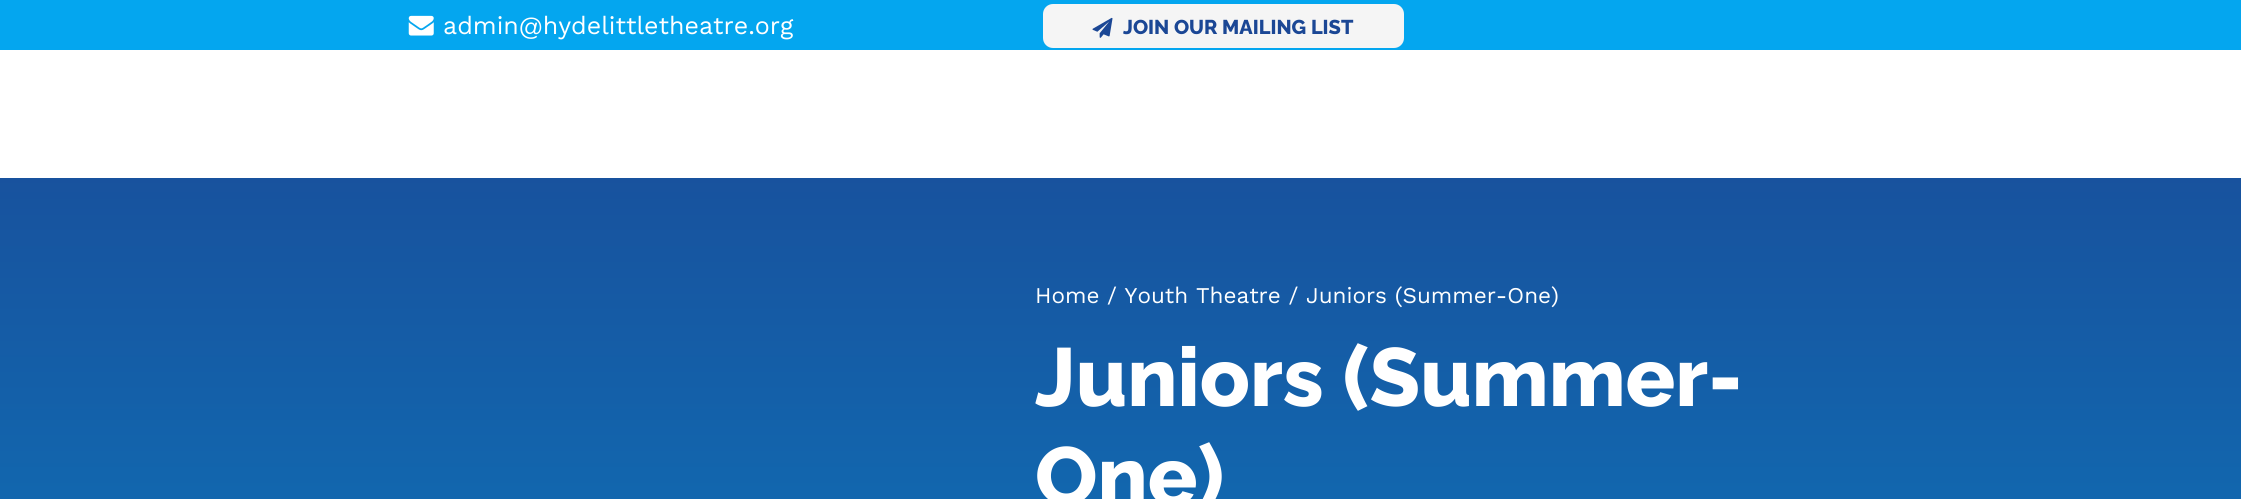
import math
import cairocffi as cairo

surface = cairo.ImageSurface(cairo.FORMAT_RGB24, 2241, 499)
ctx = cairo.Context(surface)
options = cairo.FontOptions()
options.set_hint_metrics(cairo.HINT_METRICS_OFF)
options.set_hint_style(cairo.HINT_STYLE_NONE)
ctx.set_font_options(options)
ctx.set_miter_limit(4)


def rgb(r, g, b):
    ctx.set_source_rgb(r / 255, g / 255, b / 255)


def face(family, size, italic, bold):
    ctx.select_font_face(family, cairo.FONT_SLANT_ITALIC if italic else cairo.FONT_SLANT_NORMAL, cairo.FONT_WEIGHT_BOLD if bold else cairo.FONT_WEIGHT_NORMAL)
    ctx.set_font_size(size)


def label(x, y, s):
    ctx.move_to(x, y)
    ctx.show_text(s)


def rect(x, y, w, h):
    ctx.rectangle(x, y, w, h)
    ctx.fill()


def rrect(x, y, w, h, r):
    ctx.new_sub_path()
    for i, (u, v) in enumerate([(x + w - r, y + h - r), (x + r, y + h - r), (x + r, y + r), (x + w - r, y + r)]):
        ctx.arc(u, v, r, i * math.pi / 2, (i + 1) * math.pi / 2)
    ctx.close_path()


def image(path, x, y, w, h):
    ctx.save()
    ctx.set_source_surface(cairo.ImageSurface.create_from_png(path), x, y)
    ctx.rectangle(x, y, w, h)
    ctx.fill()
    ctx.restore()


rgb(255, 255, 255)
ctx.paint()
gradient = cairo.LinearGradient(1121, 0, 1121, 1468)
gradient.add_color_stop_rgba(0, 0.106, 0.278, 0.584, 1)
gradient.add_color_stop_rgba(1, 0, 0.643, 0.875, 1)
ctx.set_source(gradient)
rect(0, 178, 2241, 321)
gradient = cairo.LinearGradient(1121, 0, 1121, 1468)
gradient.add_color_stop_rgba(0, 0.016, 0.651, 0.937, 1)
gradient.add_color_stop_rgba(1, 0, 0.706, 0.98, 1)
ctx.set_source(gradient)
rect(0, 0, 2241, 50)
image('image0.png', 408, 15, 26, 21)
face('Work Sans', 25, 0, 0)
rgb(255, 255, 255)
label(443, 34, 'admin@hydelittletheatre.org')
rgb(245, 245, 245)
rrect(1043, 4, 361, 44, 10)
ctx.fill()
image('image1.png', 1092, 17, 21, 21)
face('Raleway Thin', 20, 0, 0)
rgb(27, 71, 149)
label(1123, 34, 'JOIN OUR MAILING LIST')
face('Work Sans', 22.5, 0, 0)
rgb(255, 255, 255)
label(1035, 303, 'Home / Youth Theatre / Juniors (Summer-One)')
face('Raleway Thin', 82.25, 0, 0)
label(1035, 406, 'Juniors (Summer-')
label(1035, 505, 'One)')
surface.write_to_png('render.png')
